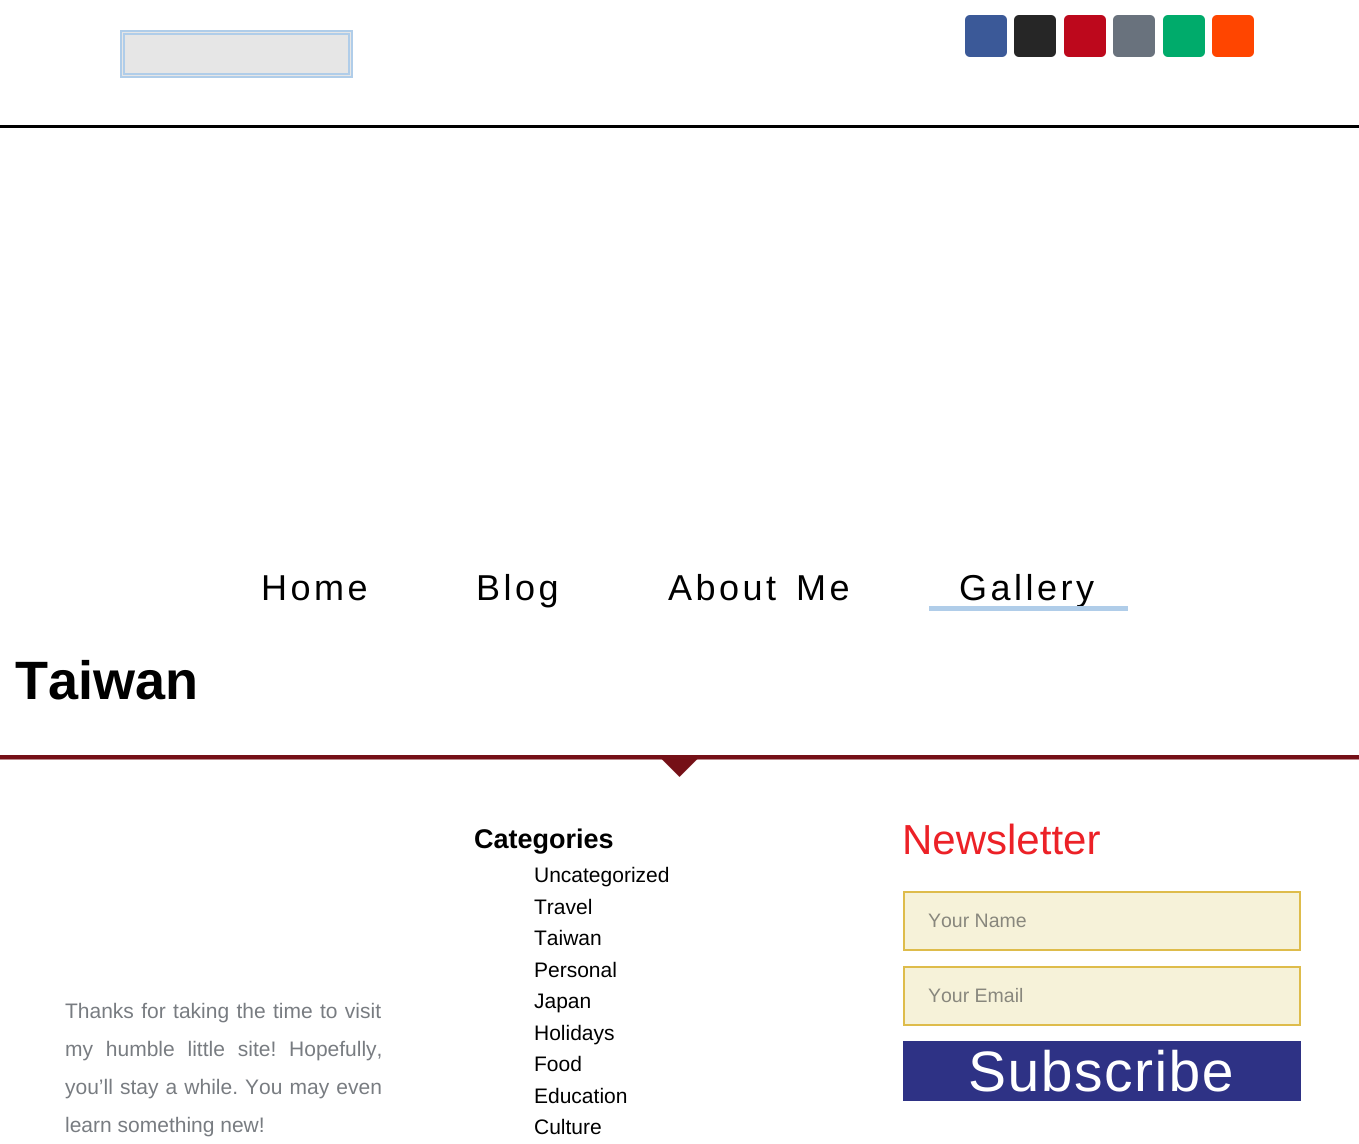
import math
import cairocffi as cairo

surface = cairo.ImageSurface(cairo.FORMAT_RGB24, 1359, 1144)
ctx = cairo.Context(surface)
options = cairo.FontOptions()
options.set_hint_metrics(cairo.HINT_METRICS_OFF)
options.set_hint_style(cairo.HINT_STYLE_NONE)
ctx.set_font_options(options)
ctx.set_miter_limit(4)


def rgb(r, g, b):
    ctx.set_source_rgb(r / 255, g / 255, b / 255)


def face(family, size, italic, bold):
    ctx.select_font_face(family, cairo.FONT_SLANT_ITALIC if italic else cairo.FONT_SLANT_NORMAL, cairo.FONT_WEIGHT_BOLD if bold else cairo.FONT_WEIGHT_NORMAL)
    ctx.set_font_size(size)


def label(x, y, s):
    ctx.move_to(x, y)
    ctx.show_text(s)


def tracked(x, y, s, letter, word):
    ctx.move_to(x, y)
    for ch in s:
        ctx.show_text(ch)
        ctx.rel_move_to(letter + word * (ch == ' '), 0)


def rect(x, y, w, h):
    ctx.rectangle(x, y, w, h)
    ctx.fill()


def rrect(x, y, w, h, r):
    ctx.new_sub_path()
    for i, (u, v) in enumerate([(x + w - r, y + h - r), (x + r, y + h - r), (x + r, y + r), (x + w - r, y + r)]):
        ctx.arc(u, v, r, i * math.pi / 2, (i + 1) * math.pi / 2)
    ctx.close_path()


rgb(255, 255, 255)
ctx.paint()
rgb(230, 230, 230)
ctx.rectangle(121, 31, 231, 46)
ctx.fill_preserve()
rgb(176, 205, 233)
ctx.stroke()
ctx.rectangle(124, 34, 225, 40)
ctx.stroke()
rgb(59, 89, 152)
rrect(965, 15, 42, 42, 5)
ctx.fill()
rgb(38, 38, 38)
rrect(1014, 15, 42, 42, 5)
ctx.fill()
rgb(189, 8, 28)
rrect(1064, 15, 42, 42, 5)
ctx.fill()
rgb(105, 114, 125)
rrect(1113, 15, 42, 42, 5)
ctx.fill()
rgb(0, 171, 107)
rrect(1163, 15, 42, 42, 5)
ctx.fill()
rgb(255, 69, 0)
rrect(1212, 15, 42, 42, 5)
ctx.fill()
rgb(0, 0, 0)
rect(0, 125, 1359, 3)
face('Liberation Sans', 36, 0, 0)
tracked(261, 600, 'Home', 3.5, 0)
tracked(476, 600, 'Blog', 3.5, 0)
tracked(668, 600, 'About Me', 3.5, 3)
tracked(959, 600, 'Gallery', 3.5, 0)
rgb(176, 205, 233)
rect(929, 606, 199, 5)
face('Liberation Sans', 54, 0, 1)
rgb(0, 0, 0)
label(15, 699, 'Taiwan')
rgb(117, 16, 23)
rect(0, 755, 1359, 4)
rgb(186, 136, 139)
rect(0, 759, 1359, 1)
ctx.save()
ctx.rectangle(0, 758, 1359, 19)
ctx.clip()
rgb(117, 16, 23)
ctx.new_path()
ctx.move_to(679.5, 777)
ctx.line_to(660, 757.5)
ctx.line_to(699, 757.5)
ctx.close_path()
ctx.fill()
ctx.restore()
face('Liberation Sans', 21, 0, 0)
rgb(120, 124, 129)
tracked(65, 1018, 'Thanks for taking the time to visit', 0, 1.5)
tracked(65, 1056, 'my humble little site! Hopefully,', 0, 7)
tracked(65, 1094, 'you’ll stay a while. You may even', 0, 1.25)
label(65, 1132, 'learn something new!')
face('Liberation Sans', 27, 0, 1)
rgb(0, 0, 0)
label(474, 848, 'Categories')
face('Liberation Sans', 21, 0, 0)
label(534, 882, 'Uncategorized')
label(534, 914, 'Travel')
label(534, 945, 'Taiwan')
label(534, 977, 'Personal')
label(534, 1008, 'Japan')
label(534, 1040, 'Holidays')
label(534, 1071, 'Food')
label(534, 1103, 'Education')
label(534, 1134, 'Culture')
face('Liberation Sans', 42, 0, 0)
rgb(236, 33, 39)
label(902, 854, 'Newsletter')
rgb(246, 242, 217)
ctx.rectangle(904, 892, 396, 58)
ctx.fill_preserve()
rgb(222, 188, 75)
ctx.stroke()
face('Liberation Sans', 19.5, 0, 0)
rgb(136, 135, 125)
label(928, 927, 'Your Name')
rgb(246, 242, 217)
ctx.rectangle(904, 967, 396, 58)
ctx.fill_preserve()
rgb(222, 188, 75)
ctx.stroke()
rgb(136, 135, 125)
label(928, 1002, 'Your Email')
rgb(46, 50, 133)
rect(903, 1041, 398, 60)
face('Liberation Sans', 57, 0, 0)
rgb(255, 255, 255)
tracked(968, 1091, 'Subscribe', 1.5, 0)
surface.write_to_png('render.png')
